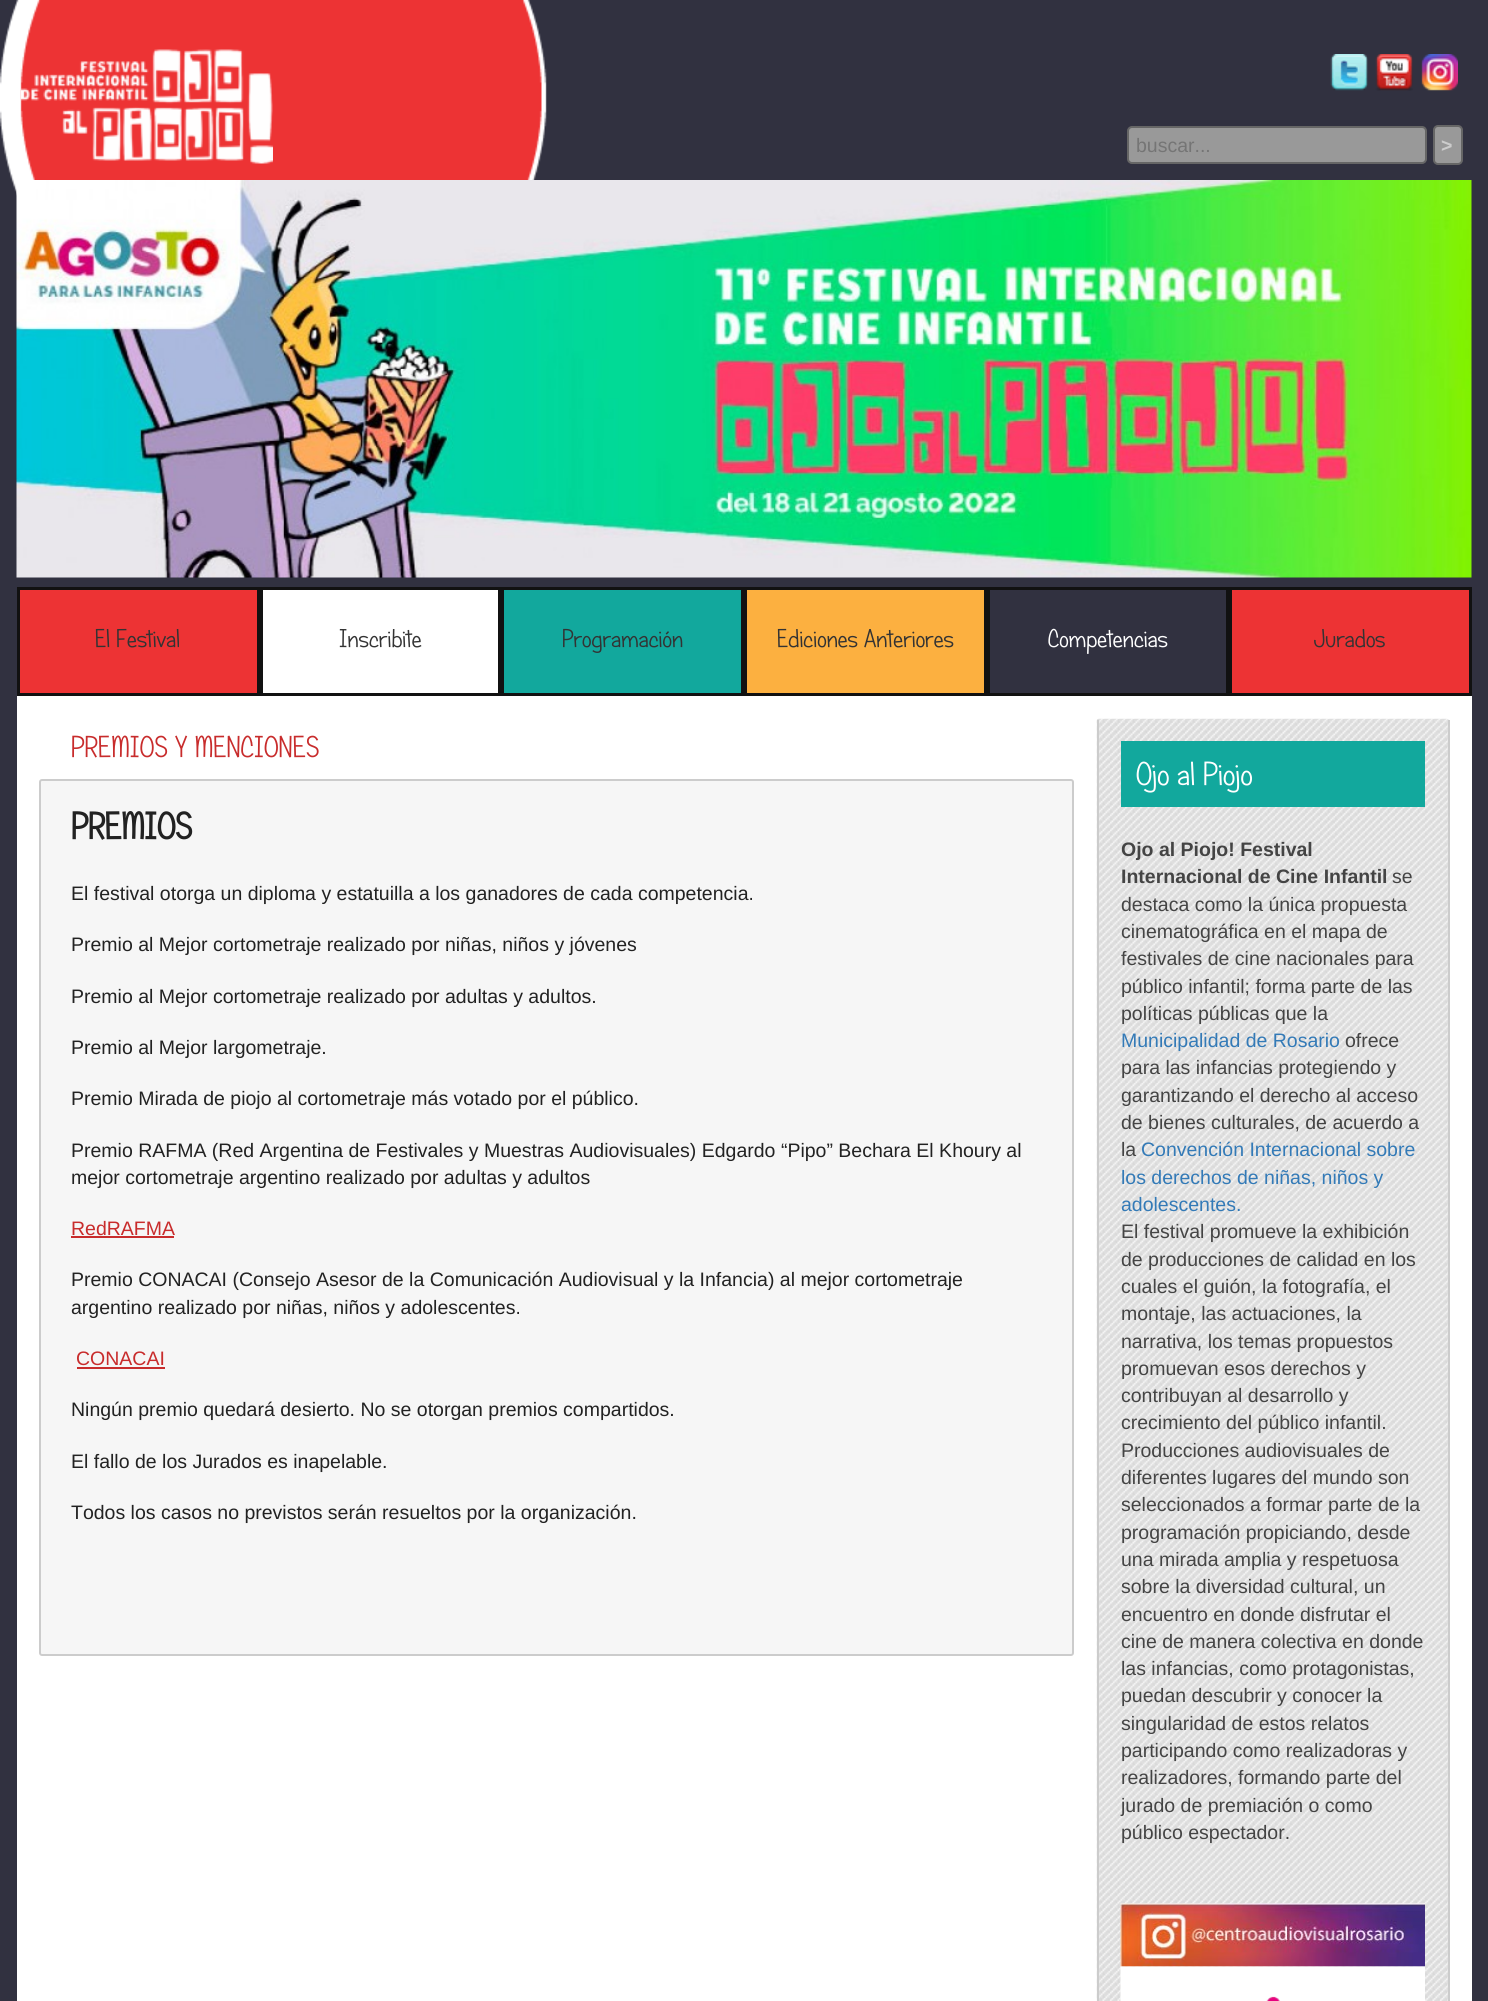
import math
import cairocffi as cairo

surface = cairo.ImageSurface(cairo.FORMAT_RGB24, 1488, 2001)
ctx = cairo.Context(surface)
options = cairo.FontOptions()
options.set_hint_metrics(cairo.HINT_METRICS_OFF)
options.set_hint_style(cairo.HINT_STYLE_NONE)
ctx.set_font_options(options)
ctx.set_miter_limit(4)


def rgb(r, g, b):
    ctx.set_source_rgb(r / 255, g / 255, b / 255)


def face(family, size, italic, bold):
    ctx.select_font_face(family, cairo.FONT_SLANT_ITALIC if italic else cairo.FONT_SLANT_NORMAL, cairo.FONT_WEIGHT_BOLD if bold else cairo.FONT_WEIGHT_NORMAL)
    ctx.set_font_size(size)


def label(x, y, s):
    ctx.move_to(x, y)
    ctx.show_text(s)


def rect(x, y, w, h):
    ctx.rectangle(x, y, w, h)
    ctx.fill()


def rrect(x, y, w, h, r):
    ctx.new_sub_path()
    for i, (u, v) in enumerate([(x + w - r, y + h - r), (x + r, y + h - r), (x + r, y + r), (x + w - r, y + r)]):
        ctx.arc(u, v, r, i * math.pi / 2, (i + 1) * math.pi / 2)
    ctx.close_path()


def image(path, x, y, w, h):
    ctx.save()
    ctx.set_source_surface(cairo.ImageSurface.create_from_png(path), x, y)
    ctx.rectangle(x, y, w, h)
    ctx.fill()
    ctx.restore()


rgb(49, 49, 64)
ctx.paint()
image('image0.png', 0, 0, 547, 196)
image('image1.png', 21, 49, 252, 115)
image('image2.png', 1330, 54, 38, 37)
image('image3.png', 1375, 54, 38, 37)
image('image4.png', 1421, 54, 37, 37)
rgb(153, 153, 153)
rrect(1128, 127, 298, 36, 4)
ctx.fill_preserve()
rgb(102, 102, 102)
ctx.stroke()
face('Liberation Sans', 19.5, 0, 0)
rgb(117, 117, 117)
label(1136, 152, 'buscar...')
rgb(153, 153, 153)
rrect(1434, 126, 28, 38, 4)
ctx.fill_preserve()
rgb(102, 102, 102)
ctx.stroke()
face('Liberation Sans', 19.5, 0, 1)
rgb(204, 204, 204)
label(1441, 152, '>')
image('image5.png', 16, 180, 1456, 398)
rgb(237, 51, 52)
ctx.rectangle(18.5, 588.5, 240, 106)
ctx.fill_preserve()
rgb(17, 17, 17)
ctx.set_line_width(3)
ctx.stroke()
face('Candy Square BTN', 25.5, 0, 0)
rgb(51, 51, 51)
label(95, 647, 'El Festival')
rgb(255, 255, 255)
ctx.rectangle(261.5, 588.5, 238, 106)
ctx.fill_preserve()
rgb(17, 17, 17)
ctx.stroke()
rgb(51, 51, 51)
label(339, 647, 'Inscribite')
rgb(18, 168, 157)
ctx.rectangle(502.5, 588.5, 240, 106)
ctx.fill_preserve()
rgb(17, 17, 17)
ctx.stroke()
rgb(51, 51, 51)
label(562, 647, 'Programación')
rgb(252, 176, 64)
ctx.rectangle(745.5, 588.5, 240, 106)
ctx.fill_preserve()
rgb(17, 17, 17)
ctx.stroke()
rgb(51, 51, 51)
label(777, 647, 'Ediciones Anteriores')
ctx.rectangle(988.5, 588.5, 239, 106)
rgb(17, 17, 17)
ctx.stroke()
rgb(255, 255, 255)
label(1048, 647, 'Competencias')
rgb(237, 51, 52)
ctx.rectangle(1230.5, 588.5, 240, 106)
ctx.fill_preserve()
rgb(17, 17, 17)
ctx.stroke()
rgb(51, 51, 51)
label(1314, 647, 'Jurados')
rgb(255, 255, 255)
rect(17, 696, 1455, 1305)
rgb(246, 246, 246)
rrect(40, 780, 1033, 875, 2)
ctx.fill_preserve()
rgb(204, 204, 204)
ctx.set_line_width(2)
ctx.stroke()
face('Candy Square BTN', 30, 0, 0)
rgb(200, 44, 44)
label(71, 757, 'PREMIOS Y MENCIONES')
face('Candy Square BTN', 37.5, 0, 1)
rgb(34, 34, 34)
label(71, 839, 'PREMIOS')
face('Liberation Sans', 19.5, 0, 0)
label(71, 900, 'El festival otorga un diploma y estatuilla a los ganadores de cada competencia.')
label(71, 951, 'Premio al Mejor cortometraje realizado por niñas, niños y jóvenes')
label(71, 1003, 'Premio al Mejor cortometraje realizado por adultas y adultos.')
label(71, 1054, 'Premio al Mejor largometraje.')
label(71, 1105, 'Premio Mirada de piojo al cortometraje más votado por el público.')
label(71, 1157, 'Premio RAFMA (Red Argentina de Festivales y Muestras Audiovisuales) Edgardo “Pipo” Bechara El Khoury al')
label(71, 1184, 'mejor cortometraje argentino realizado por adultas y adultos')
rgb(200, 44, 44)
label(71, 1235, 'RedRAFMA')
rect(71, 1236, 103, 2)
rgb(34, 34, 34)
label(71, 1286, 'Premio CONACAI (Consejo Asesor de la Comunicación Audiovisual y la Infancia) al mejor cortometraje')
label(71, 1314, 'argentino realizado por niñas, niños y adolescentes.')
rgb(200, 44, 44)
label(76, 1365, 'CONACAI')
rect(77, 1367, 88, 2)
rgb(34, 34, 34)
label(71, 1416, 'Ningún premio quedará desierto. No se otorgan premios compartidos.')
label(71, 1468, 'El fallo de los Jurados es inapelable.')
label(71, 1519, 'Todos los casos no previstos serán resueltos por la organización.')
image('image6.png', 1096, 718, 353, 1283)
rgb(204, 204, 204)
rect(1448, 720, 2, 1281)
rect(1097, 720, 2, 1281)
rgb(18, 168, 157)
rect(1121, 741, 304, 66)
face('Candy Square BTN', 33, 0, 0)
rgb(255, 255, 255)
label(1136, 785, 'Ojo al Piojo')
face('Liberation Sans', 19.5, 0, 1)
rgb(68, 68, 68)
label(1121, 856, 'Ojo al Piojo! Festival')
label(1121, 883, 'Internacional de Cine Infantil')
face('Liberation Sans', 19.5, 0, 0)
label(1392, 883, 'se')
label(1121, 911, 'destaca como la única propuesta')
label(1121, 938, 'cinematográfica en el mapa de')
label(1121, 965, 'festivales de cine nacionales para')
label(1121, 993, 'público infantil; forma parte de las')
label(1121, 1020, 'políticas públicas que la')
rgb(51, 122, 183)
label(1121, 1047, 'Municipalidad de Rosario')
rgb(68, 68, 68)
label(1345, 1047, 'ofrece')
label(1121, 1074, 'para las infancias protegiendo y')
label(1121, 1102, 'garantizando el derecho al acceso')
label(1121, 1129, 'de bienes culturales, de acuerdo a')
label(1121, 1156, 'la')
rgb(51, 122, 183)
label(1141, 1156, 'Convención Internacional sobre')
label(1121, 1184, 'los derechos de niñas, niños y')
label(1121, 1211, 'adolescentes.')
rgb(68, 68, 68)
label(1121, 1238, 'El festival promueve la exhibición')
label(1121, 1266, 'de producciones de calidad en los')
label(1121, 1293, 'cuales el guión, la fotografía, el')
label(1121, 1320, 'montaje, las actuaciones, la')
label(1121, 1348, 'narrativa, los temas propuestos')
label(1121, 1375, 'promuevan esos derechos y')
label(1121, 1402, 'contribuyan al desarrollo y')
label(1121, 1429, 'crecimiento del público infantil.')
label(1121, 1457, 'Producciones audiovisuales de')
label(1121, 1484, 'diferentes lugares del mundo son')
label(1121, 1511, 'seleccionados a formar parte de la')
label(1121, 1539, 'programación propiciando, desde')
label(1121, 1566, 'una mirada amplia y respetuosa')
label(1121, 1593, 'sobre la diversidad cultural, un')
label(1121, 1621, 'encuentro en donde disfrutar el')
label(1121, 1648, 'cine de manera colectiva en donde')
label(1121, 1675, 'las infancias, como protagonistas,')
label(1121, 1702, 'puedan descubrir y conocer la')
label(1121, 1730, 'singularidad de estos relatos')
label(1121, 1757, 'participando como realizadoras y')
label(1121, 1784, 'realizadores, formando parte del')
label(1121, 1812, 'jurado de premiación o como')
label(1121, 1839, 'público espectador.')
image('image7.png', 1120, 1903, 305, 64)
image('image8.png', 1120, 1966, 305, 35)
surface.write_to_png('render.png')
